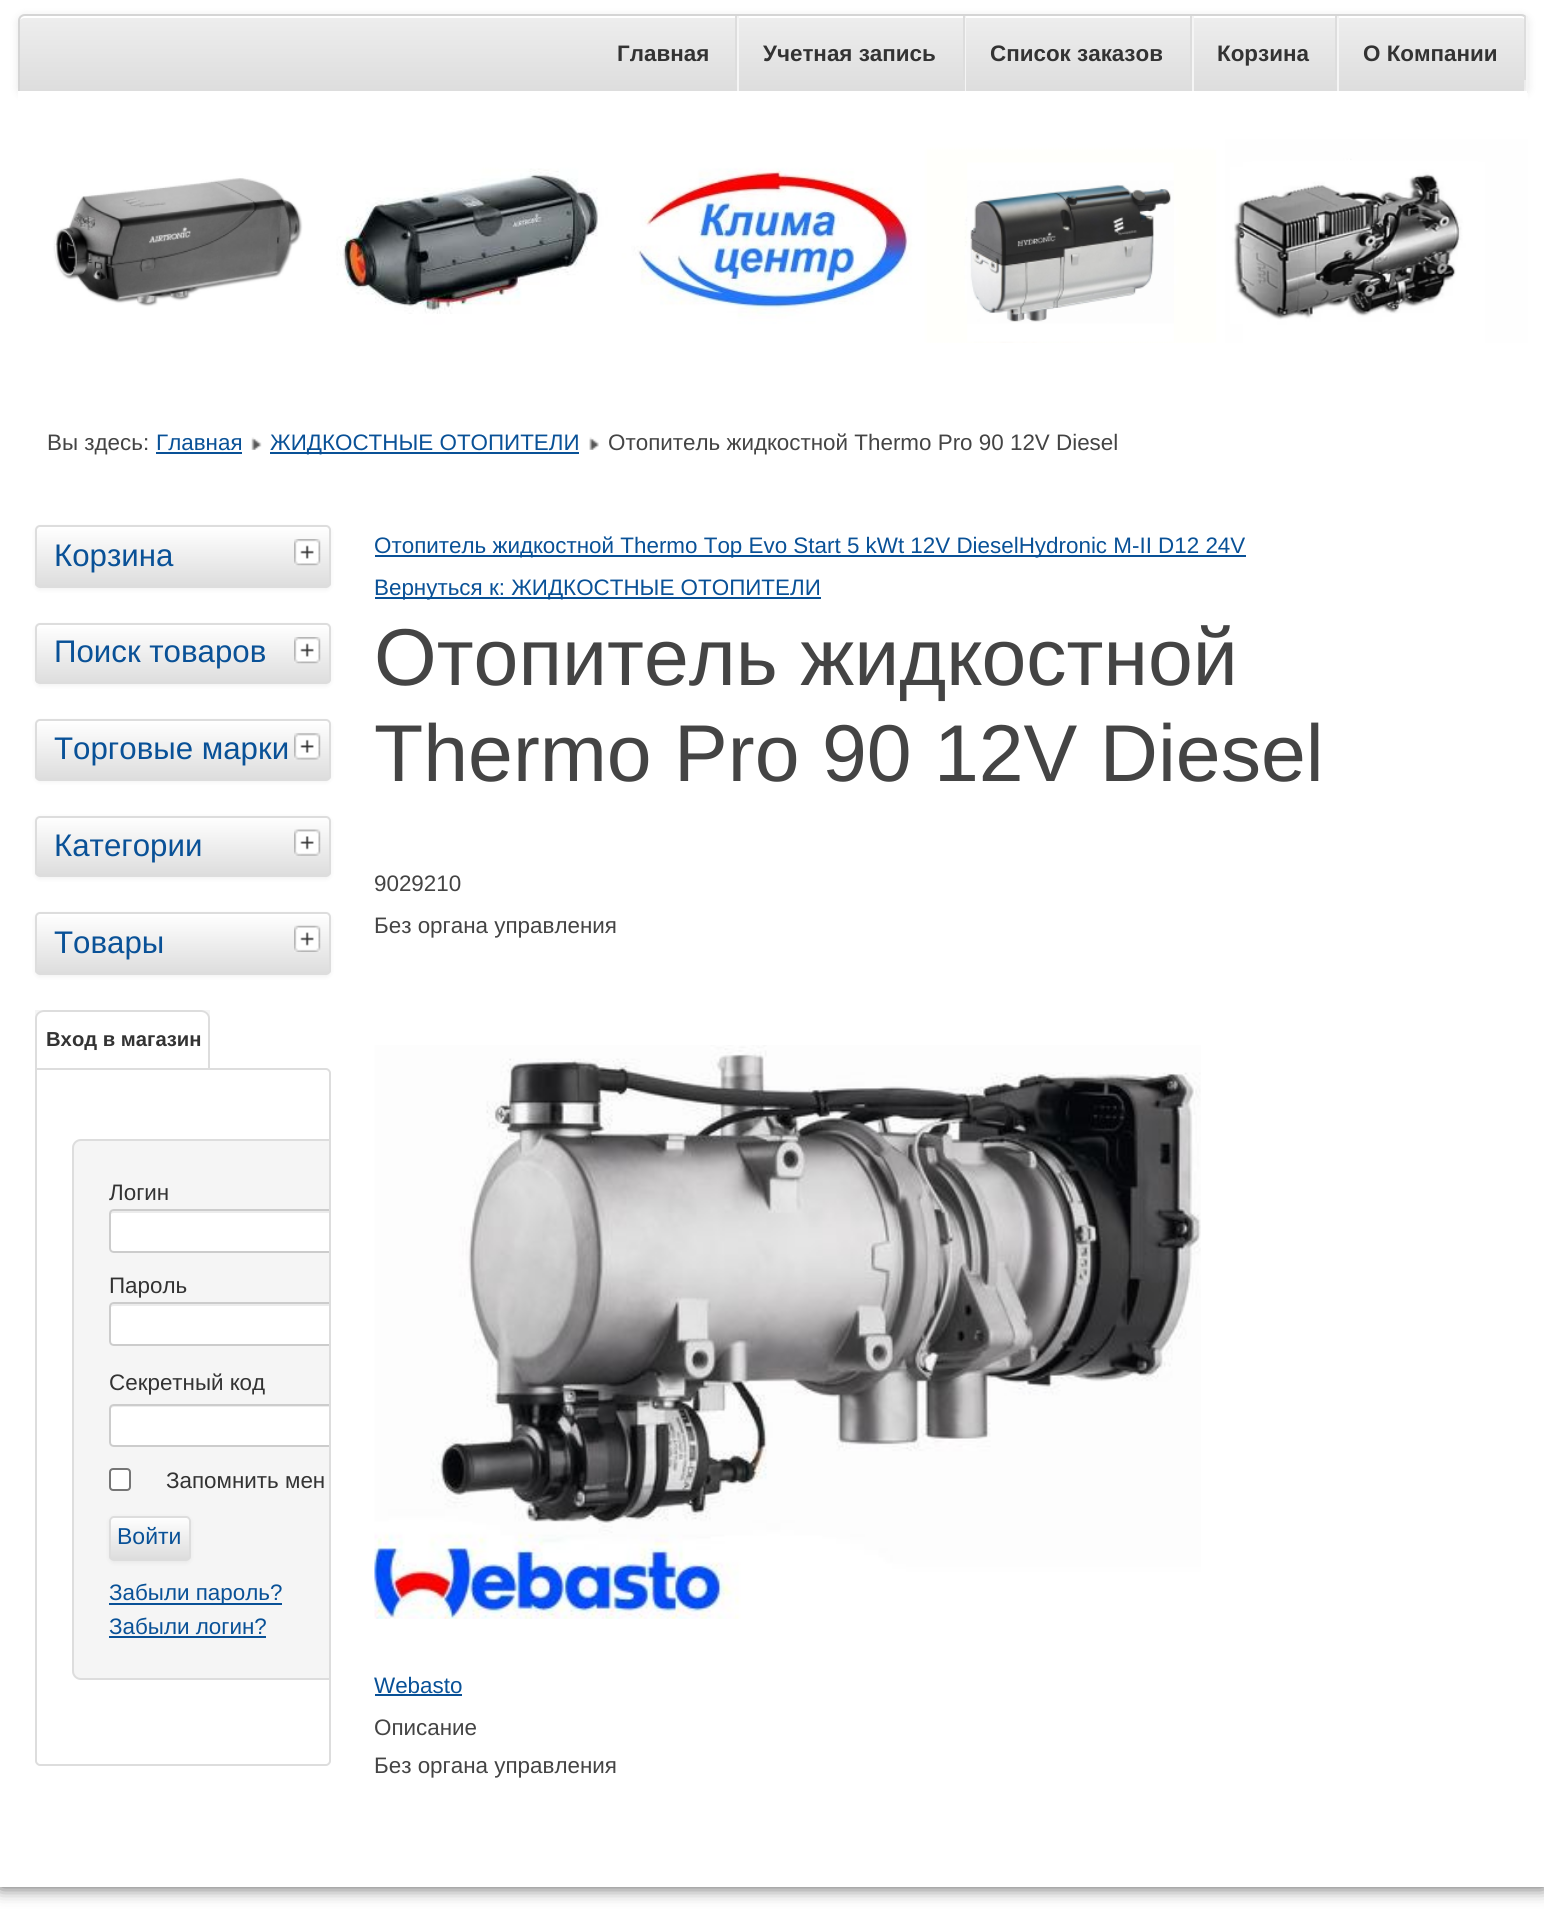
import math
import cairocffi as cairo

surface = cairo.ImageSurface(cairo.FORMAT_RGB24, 1544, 1909)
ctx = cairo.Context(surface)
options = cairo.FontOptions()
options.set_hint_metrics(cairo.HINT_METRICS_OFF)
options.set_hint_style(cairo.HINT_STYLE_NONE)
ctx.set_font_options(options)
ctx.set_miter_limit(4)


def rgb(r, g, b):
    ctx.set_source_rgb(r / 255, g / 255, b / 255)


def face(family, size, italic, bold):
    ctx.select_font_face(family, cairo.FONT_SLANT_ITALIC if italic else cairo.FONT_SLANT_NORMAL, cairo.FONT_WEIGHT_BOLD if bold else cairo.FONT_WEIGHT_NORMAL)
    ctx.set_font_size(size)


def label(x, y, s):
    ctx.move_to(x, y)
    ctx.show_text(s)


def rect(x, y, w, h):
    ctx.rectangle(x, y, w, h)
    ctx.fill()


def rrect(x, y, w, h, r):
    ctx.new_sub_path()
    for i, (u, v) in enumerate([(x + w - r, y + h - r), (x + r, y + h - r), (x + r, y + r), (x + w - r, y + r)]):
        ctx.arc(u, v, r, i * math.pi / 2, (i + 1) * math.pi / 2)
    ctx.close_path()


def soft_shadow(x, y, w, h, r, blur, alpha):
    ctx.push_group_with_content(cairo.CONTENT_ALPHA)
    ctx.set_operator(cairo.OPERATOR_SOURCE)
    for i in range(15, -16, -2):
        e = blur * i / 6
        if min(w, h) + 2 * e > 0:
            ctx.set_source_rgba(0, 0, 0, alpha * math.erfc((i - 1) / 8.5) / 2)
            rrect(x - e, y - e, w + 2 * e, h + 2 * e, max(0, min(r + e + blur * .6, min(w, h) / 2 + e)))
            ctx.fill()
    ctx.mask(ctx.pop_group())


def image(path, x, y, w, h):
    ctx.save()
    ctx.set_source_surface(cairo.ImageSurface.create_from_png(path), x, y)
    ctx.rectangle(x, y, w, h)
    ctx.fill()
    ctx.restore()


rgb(255, 255, 255)
ctx.paint()
rgb(85, 85, 85)
soft_shadow(0, 0, 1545, 1887, 0, 9, 1)
rgb(255, 255, 255)
rect(0, 0, 1544, 1887)
rgb(0, 0, 0)
soft_shadow(18, 16, 1510, 79, 7, 4.5, 0.1)
ctx.save()
ctx.new_path()
ctx.move_to(25, 14)
ctx.line_to(1521, 14)
ctx.curve_to(1525, 14, 1528, 17, 1528, 21)
ctx.line_to(1528, 93)
ctx.line_to(18, 93)
ctx.line_to(18, 21)
ctx.curve_to(18, 17, 21, 14, 25, 14)
ctx.close_path()
ctx.clip()
gradient = cairo.LinearGradient(773, 16, 773, 91)
gradient.add_color_stop_rgba(0, 0.933, 0.933, 0.933, 1)
gradient.add_color_stop_rgba(1, 0.867, 0.867, 0.867, 1)
ctx.set_source(gradient)
rect(18, 16, 1506, 75)
ctx.restore()
rgb(255, 255, 255)
ctx.new_path()
ctx.move_to(24, 18)
ctx.line_to(1521, 18)
ctx.curve_to(1524, 18, 1526, 20, 1526, 23)
ctx.curve_to(1526, 20, 1525, 16, 1521, 16)
ctx.line_to(24, 16)
ctx.curve_to(20, 16, 19, 20, 19, 23)
ctx.curve_to(19, 20, 22, 18, 24, 18)
ctx.close_path()
ctx.fill()
ctx.new_path()
ctx.move_to(25, 15)
ctx.line_to(1521, 15)
ctx.curve_to(1524.5, 15, 1527, 17.5, 1527, 21)
ctx.line_to(1527, 92)
ctx.line_to(19, 92)
ctx.line_to(19, 21)
ctx.curve_to(19, 17.5, 21.5, 15, 25, 15)
ctx.close_path()
rgb(213, 213, 213)
ctx.stroke()
rgb(245, 245, 245)
rect(737, 16, 2, 75)
rgb(221, 221, 221)
rect(735, 16, 2, 64)
face('Liberation Sans', 22.4, 0, 1)
rgb(51, 51, 51)
label(617, 61, 'Главная')
rgb(245, 245, 245)
rect(965, 16, 1, 75)
rgb(221, 221, 221)
rect(963, 16, 2, 64)
rgb(51, 51, 51)
label(763, 61, 'Учетная запись')
rgb(245, 245, 245)
rect(1192, 16, 2, 75)
rgb(221, 221, 221)
rect(1190, 16, 2, 64)
rgb(51, 51, 51)
label(990, 61, 'Список заказов')
rgb(245, 245, 245)
rect(1337, 16, 2, 75)
rgb(221, 221, 221)
rect(1335, 16, 2, 64)
rgb(51, 51, 51)
label(1217, 61, 'Корзина')
rgb(245, 245, 245)
rect(1526, 16, 2, 75)
rgb(221, 221, 221)
rect(1524, 16, 2, 64)
rgb(51, 51, 51)
label(1363, 61, 'О Компании')
image('image0.png', 18, 91, 1510, 252)
face('Liberation Sans', 22.4, 0, 0)
rgb(68, 68, 68)
label(47, 450, 'Вы здесь:')
rgb(9, 81, 151)
label(156, 450, 'Главная')
rect(156, 452, 86, 2)
image('image1.png', 251, 437, 11, 13)
rect(270, 452, 309, 2)
label(270, 450, 'ЖИДКОСТНЫЕ ОТОПИТЕЛИ')
image('image2.png', 589, 437, 10, 13)
rgb(68, 68, 68)
label(608, 450, 'Отопитель жидкостной Thermo Pro 90 12V Diesel')
rgb(0, 0, 0)
soft_shadow(35, 527, 296, 63, 5, 2, 0.05)
ctx.save()
rrect(35, 525, 296, 63, 5)
ctx.clip()
gradient = cairo.LinearGradient(183, 527, 183, 586)
gradient.add_color_stop_rgba(0, 1, 1, 1, 1)
gradient.add_color_stop_rgba(1, 0.867, 0.867, 0.867, 1)
ctx.set_source(gradient)
rect(35, 527, 296, 59)
ctx.restore()
rrect(36, 526, 294, 61, 4)
rgb(221, 221, 221)
ctx.stroke()
face('Liberation Sans', 31.25, 0, 0)
rgb(9, 81, 151)
label(54, 566, 'Корзина')
image('image3.png', 294, 539, 27, 27)
rgb(0, 0, 0)
soft_shadow(35, 625, 296, 61, 5, 2, 0.05)
ctx.save()
rrect(35, 623, 296, 61, 5)
ctx.clip()
gradient = cairo.LinearGradient(183, 625, 183, 683)
gradient.add_color_stop_rgba(0, 1, 1, 1, 1)
gradient.add_color_stop_rgba(1, 0.867, 0.867, 0.867, 1)
ctx.set_source(gradient)
rect(35, 625, 296, 58)
ctx.restore()
rrect(36, 624, 294, 59, 4)
rgb(221, 221, 221)
ctx.stroke()
rgb(9, 81, 151)
label(54, 662, 'Поиск товаров')
image('image4.png', 294, 637, 27, 27)
rgb(0, 0, 0)
soft_shadow(35, 721, 296, 61, 5, 2, 0.05)
ctx.save()
rrect(35, 719, 296, 62, 5)
ctx.clip()
gradient = cairo.LinearGradient(183, 721, 183, 779)
gradient.add_color_stop_rgba(0, 1, 1, 1, 1)
gradient.add_color_stop_rgba(1, 0.867, 0.867, 0.867, 1)
ctx.set_source(gradient)
rect(35, 721, 296, 58)
ctx.restore()
rrect(36, 720, 294, 60, 4)
rgb(221, 221, 221)
ctx.stroke()
rgb(9, 81, 151)
label(54, 759, 'Торговые марки')
image('image5.png', 294, 733, 27, 27)
rgb(0, 0, 0)
soft_shadow(35, 817, 296, 62, 5, 2, 0.05)
ctx.save()
rrect(35, 816, 296, 61, 5)
ctx.clip()
gradient = cairo.LinearGradient(183, 817, 183, 875)
gradient.add_color_stop_rgba(0, 1, 1, 1, 1)
gradient.add_color_stop_rgba(1, 0.867, 0.867, 0.867, 1)
ctx.set_source(gradient)
rect(35, 817, 296, 58)
ctx.restore()
rrect(36, 817, 294, 59, 4)
rgb(221, 221, 221)
ctx.stroke()
rgb(9, 81, 151)
label(54, 856, 'Категории')
image('image6.png', 294, 829, 27, 27)
rgb(0, 0, 0)
soft_shadow(35, 914, 296, 63, 5, 2, 0.05)
ctx.save()
rrect(35, 912, 296, 63, 5)
ctx.clip()
gradient = cairo.LinearGradient(183, 914, 183, 973)
gradient.add_color_stop_rgba(0, 1, 1, 1, 1)
gradient.add_color_stop_rgba(1, 0.867, 0.867, 0.867, 1)
ctx.set_source(gradient)
rect(35, 914, 296, 59)
ctx.restore()
rrect(36, 913, 294, 61, 4)
rgb(221, 221, 221)
ctx.stroke()
rgb(9, 81, 151)
label(54, 953, 'Товары')
image('image7.png', 294, 925, 27, 27)
rgb(245, 245, 245)
rect(35, 1010, 175, 8)
rgb(255, 255, 255)
ctx.new_path()
ctx.move_to(44, 1010)
ctx.line_to(201, 1010)
ctx.curve_to(206, 1010, 210, 1014, 210, 1019)
ctx.line_to(210, 1069)
ctx.line_to(35, 1069)
ctx.line_to(35, 1019)
ctx.curve_to(35, 1014, 39, 1010, 44, 1010)
ctx.close_path()
ctx.fill()
rgb(221, 221, 221)
ctx.set_fill_rule(cairo.FILL_RULE_EVEN_ODD)
ctx.new_path()
ctx.move_to(44, 1010)
ctx.line_to(201, 1010)
ctx.curve_to(206, 1010, 210, 1014, 210, 1018)
ctx.line_to(210, 1069)
ctx.line_to(35, 1069)
ctx.line_to(35, 1018)
ctx.curve_to(35, 1014, 39, 1010, 44, 1010)
ctx.close_path()
ctx.move_to(44, 1012)
ctx.line_to(201, 1012)
ctx.curve_to(205, 1012, 208, 1015, 208, 1018)
ctx.line_to(208, 1069)
ctx.line_to(37, 1069)
ctx.line_to(37, 1018)
ctx.curve_to(37, 1015, 40, 1012, 44, 1012)
ctx.close_path()
ctx.fill()
face('Liberation Sans', 20.25, 0, 1)
rgb(51, 51, 51)
label(46, 1046, 'Вход в магазин')
rgb(255, 255, 255)
ctx.new_path()
ctx.move_to(36, 1069)
ctx.line_to(326, 1069)
ctx.curve_to(328, 1069, 330, 1071, 330, 1073)
ctx.line_to(330, 1761)
ctx.curve_to(330, 1763, 328, 1765, 326, 1765)
ctx.line_to(40, 1765)
ctx.curve_to(38, 1765, 36, 1763, 36, 1761)
ctx.close_path()
ctx.fill_preserve()
rgb(221, 221, 221)
ctx.stroke()
rgb(245, 245, 245)
ctx.new_path()
ctx.move_to(81, 1139)
ctx.line_to(329, 1139)
ctx.line_to(329, 1680)
ctx.line_to(81, 1680)
ctx.curve_to(76, 1680, 72, 1676, 72, 1671)
ctx.line_to(72, 1148)
ctx.curve_to(72, 1143, 76, 1139, 81, 1139)
ctx.close_path()
ctx.fill()
rgb(221, 221, 221)
ctx.set_fill_rule(cairo.FILL_RULE_WINDING)
ctx.new_path()
ctx.move_to(81, 1139)
ctx.curve_to(76, 1139, 72, 1143, 72, 1148)
ctx.line_to(72, 1671)
ctx.curve_to(72, 1676, 76, 1680, 81, 1680)
ctx.line_to(329, 1680)
ctx.line_to(329, 1678)
ctx.line_to(81, 1678)
ctx.curve_to(77, 1678, 74, 1675, 74, 1671)
ctx.line_to(74, 1148)
ctx.curve_to(74, 1144, 77, 1141, 81, 1141)
ctx.line_to(329, 1141)
ctx.line_to(329, 1139)
ctx.close_path()
ctx.fill()
face('Liberation Sans', 22.4, 0, 0)
rgb(51, 51, 51)
label(109, 1200, 'Логин')
rgb(255, 255, 255)
ctx.new_path()
ctx.move_to(114, 1209)
ctx.line_to(329, 1209)
ctx.line_to(329, 1253)
ctx.line_to(114, 1253)
ctx.curve_to(111, 1253, 109, 1251, 109, 1248)
ctx.line_to(109, 1214)
ctx.curve_to(109, 1211, 111, 1209, 114, 1209)
ctx.close_path()
ctx.fill()
rgb(236, 236, 236)
ctx.new_path()
ctx.move_to(114, 1213)
ctx.line_to(329, 1213)
ctx.line_to(329, 1211)
ctx.line_to(114, 1211)
ctx.curve_to(111, 1211, 110, 1213, 110, 1216)
ctx.curve_to(110, 1214, 112, 1213, 114, 1213)
ctx.close_path()
ctx.fill()
rgb(204, 204, 204)
ctx.new_path()
ctx.move_to(114, 1209)
ctx.curve_to(111, 1209, 109, 1211, 109, 1214)
ctx.line_to(109, 1248)
ctx.curve_to(109, 1251, 111, 1253, 114, 1253)
ctx.line_to(329, 1253)
ctx.line_to(329, 1251)
ctx.line_to(114, 1251)
ctx.curve_to(112, 1251, 111, 1250, 111, 1248)
ctx.line_to(111, 1214)
ctx.curve_to(111, 1212, 112, 1211, 114, 1211)
ctx.line_to(329, 1211)
ctx.line_to(329, 1209)
ctx.close_path()
ctx.fill()
rgb(51, 51, 51)
label(109, 1293, 'Пароль')
rgb(255, 255, 255)
ctx.new_path()
ctx.move_to(114, 1302)
ctx.line_to(329, 1302)
ctx.line_to(329, 1346)
ctx.line_to(114, 1346)
ctx.curve_to(111, 1346, 109, 1344, 109, 1341)
ctx.line_to(109, 1307)
ctx.curve_to(109, 1304, 111, 1302, 114, 1302)
ctx.close_path()
ctx.fill()
rgb(236, 236, 236)
ctx.new_path()
ctx.move_to(114, 1306)
ctx.line_to(329, 1306)
ctx.line_to(329, 1304)
ctx.line_to(114, 1304)
ctx.curve_to(111, 1304, 110, 1306, 110, 1309)
ctx.curve_to(110, 1307, 112, 1306, 114, 1306)
ctx.close_path()
ctx.fill()
rgb(204, 204, 204)
ctx.new_path()
ctx.move_to(114, 1302)
ctx.curve_to(111, 1302, 109, 1304, 109, 1307)
ctx.line_to(109, 1341)
ctx.curve_to(109, 1344, 111, 1346, 114, 1346)
ctx.line_to(329, 1346)
ctx.line_to(329, 1344)
ctx.line_to(114, 1344)
ctx.curve_to(112, 1344, 111, 1343, 111, 1341)
ctx.line_to(111, 1307)
ctx.curve_to(111, 1305, 112, 1304, 114, 1304)
ctx.line_to(329, 1304)
ctx.line_to(329, 1302)
ctx.close_path()
ctx.fill()
rgb(51, 51, 51)
label(109, 1390, 'Секретный код')
rgb(255, 255, 255)
ctx.new_path()
ctx.move_to(114, 1404)
ctx.line_to(329, 1404)
ctx.line_to(329, 1447)
ctx.line_to(114, 1447)
ctx.curve_to(111, 1447, 109, 1445, 109, 1442)
ctx.line_to(109, 1409)
ctx.curve_to(109, 1406, 111, 1404, 114, 1404)
ctx.close_path()
ctx.fill()
rgb(236, 236, 236)
ctx.new_path()
ctx.move_to(114, 1407)
ctx.line_to(329, 1407)
ctx.line_to(329, 1405)
ctx.line_to(114, 1405)
ctx.curve_to(111, 1405, 110, 1407, 110, 1410)
ctx.curve_to(110, 1409, 112, 1407, 114, 1407)
ctx.close_path()
ctx.fill()
rgb(204, 204, 204)
ctx.new_path()
ctx.move_to(114, 1404)
ctx.curve_to(111, 1404, 109, 1406, 109, 1409)
ctx.line_to(109, 1442)
ctx.curve_to(109, 1445, 111, 1447, 114, 1447)
ctx.line_to(329, 1447)
ctx.line_to(329, 1445)
ctx.line_to(114, 1445)
ctx.curve_to(112, 1445, 111, 1444, 111, 1442)
ctx.line_to(111, 1409)
ctx.curve_to(111, 1407, 112, 1406, 114, 1406)
ctx.line_to(329, 1406)
ctx.line_to(329, 1404)
ctx.close_path()
ctx.fill()
rgb(255, 255, 255)
rrect(110, 1469, 20, 21, 3)
ctx.fill_preserve()
rgb(118, 118, 118)
ctx.stroke()
rgb(51, 51, 51)
label(166, 1488, 'Запомнить мен')
rgb(0, 0, 0)
soft_shadow(109, 1517, 82, 46, 5, 2, 0.05)
ctx.save()
rrect(109, 1516, 82, 45, 5)
ctx.clip()
gradient = cairo.LinearGradient(150, 1517, 150, 1559)
gradient.add_color_stop_rgba(0, 1, 1, 1, 1)
gradient.add_color_stop_rgba(1, 0.867, 0.867, 0.867, 1)
ctx.set_source(gradient)
rect(109, 1517, 82, 42)
ctx.restore()
rrect(110, 1517, 80, 43, 4)
rgb(221, 221, 221)
ctx.stroke()
face('Liberation Sans', 23, 0, 0)
rgb(9, 81, 151)
label(117, 1544, 'Войти')
rect(109, 1603, 173, 2)
face('Liberation Sans', 22.4, 0, 0)
label(109, 1600, 'Забыли пароль?')
label(109, 1634, 'Забыли логин?')
rect(109, 1636, 157, 2)
rect(375, 555, 871, 2)
label(374, 553, 'Отопитель жидкостной Thermo Top Evo Start 5 kWt 12V DieselHydronic M-II D12 24V')
rect(375, 597, 446, 2)
label(374, 595, 'Вернуться к: ЖИДКОСТНЫЕ ОТОПИТЕЛИ')
face('Liberation Sans', 80.6, 0, 0)
rgb(68, 68, 68)
label(374, 685, 'Отопитель жидкостной')
label(374, 781, 'Thermo Pro 90 12V Diesel')
face('Liberation Sans', 22.4, 0, 0)
label(374, 891, '9029210')
label(374, 933, 'Без органа управления')
image('image8.png', 374, 1045, 827, 574)
rgb(9, 81, 151)
label(374, 1693, 'Webasto')
rect(375, 1694, 87, 2)
rgb(68, 68, 68)
label(374, 1735, 'Описание')
label(374, 1773, 'Без органа управления')
surface.write_to_png('render.png')
